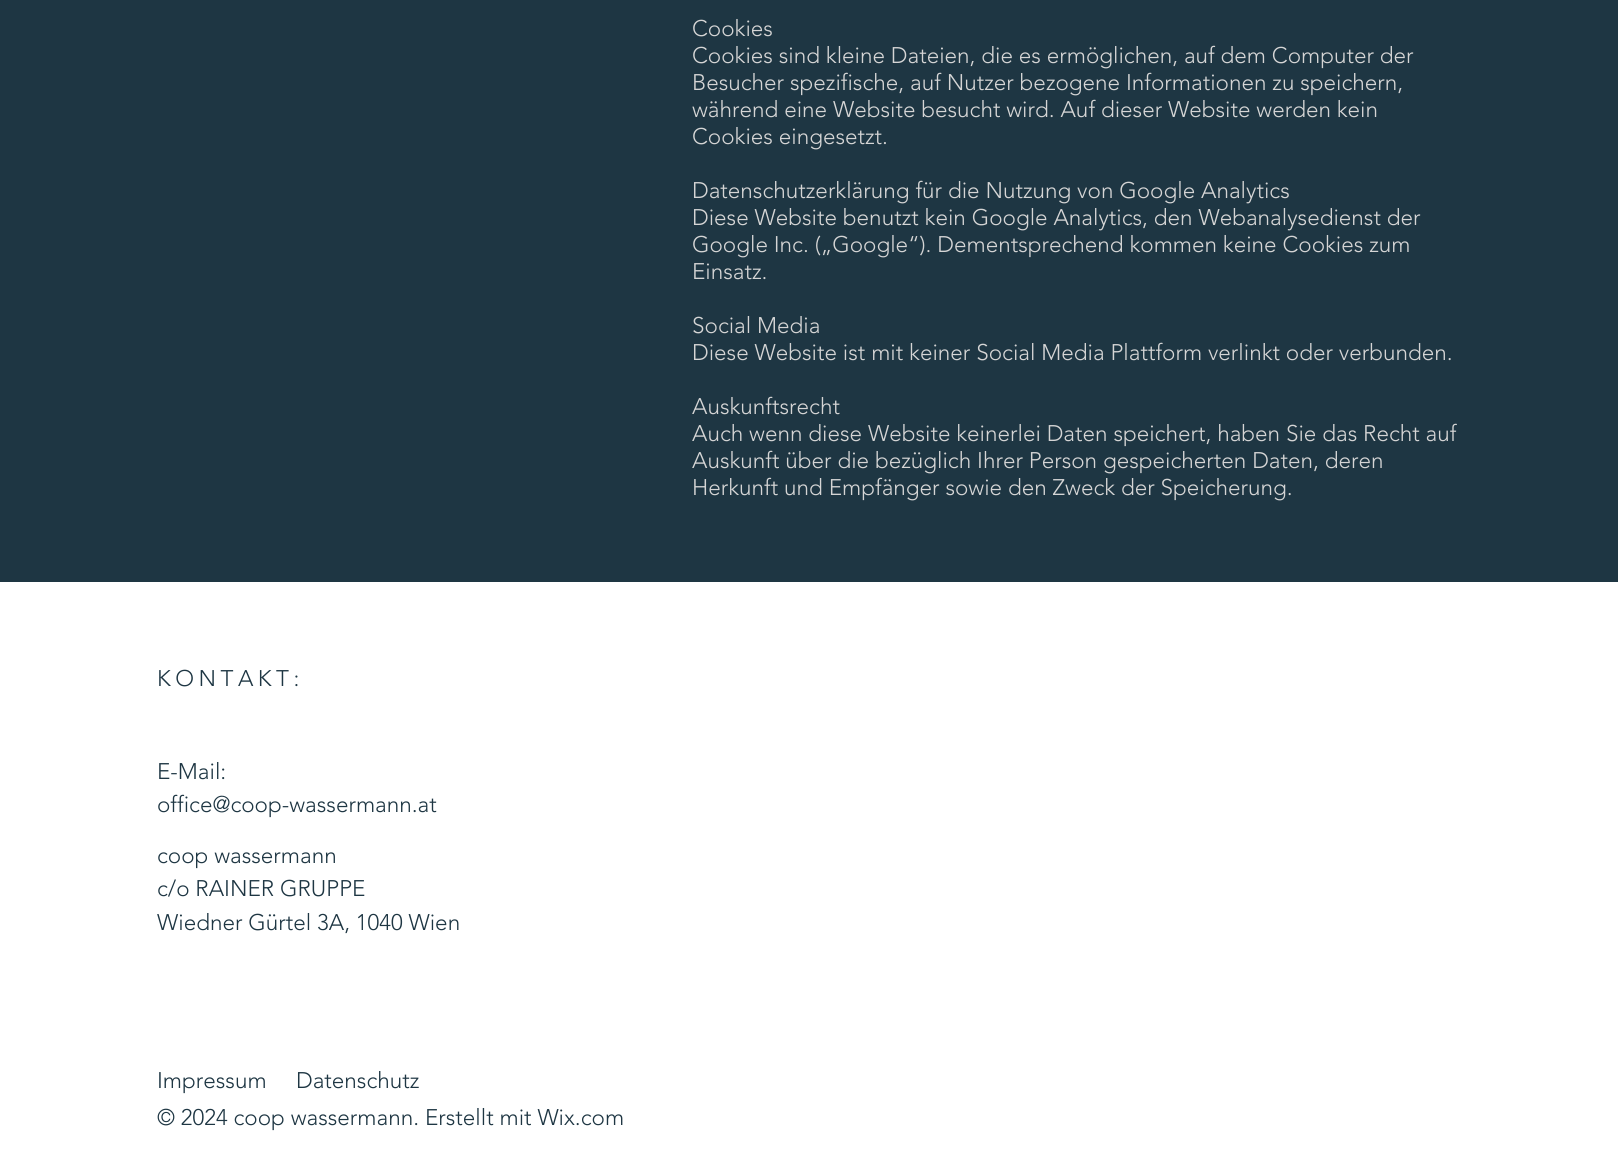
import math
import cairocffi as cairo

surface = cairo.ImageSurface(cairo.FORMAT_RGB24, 1618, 1150)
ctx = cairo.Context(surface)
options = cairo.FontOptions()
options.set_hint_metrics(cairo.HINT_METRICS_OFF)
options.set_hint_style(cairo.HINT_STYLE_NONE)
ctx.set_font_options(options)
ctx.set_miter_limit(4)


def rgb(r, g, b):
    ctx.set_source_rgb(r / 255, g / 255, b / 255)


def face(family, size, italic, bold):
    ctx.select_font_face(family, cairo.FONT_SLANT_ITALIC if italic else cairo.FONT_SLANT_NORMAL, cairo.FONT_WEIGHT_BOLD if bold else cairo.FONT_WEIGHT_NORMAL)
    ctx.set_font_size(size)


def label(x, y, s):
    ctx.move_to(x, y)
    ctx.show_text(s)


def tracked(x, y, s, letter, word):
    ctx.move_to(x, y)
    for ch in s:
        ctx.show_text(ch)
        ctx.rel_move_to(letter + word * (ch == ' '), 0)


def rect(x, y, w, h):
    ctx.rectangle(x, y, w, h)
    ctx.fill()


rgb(30, 54, 67)
ctx.paint()
face('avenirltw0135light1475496 Light', 22.5, 0, 0)
rgb(213, 213, 213)
label(692, 36, 'Cookies')
label(692, 63, 'Cookies sind kleine Dateien, die es ermöglichen, auf dem Computer der')
label(692, 90, 'Besucher spezifische, auf Nutzer bezogene Informationen zu speichern,')
label(692, 117, 'während eine Website besucht wird. Auf dieser Website werden kein')
label(692, 144, 'Cookies eingesetzt.')
label(692, 198, 'Datenschutzerklärung für die Nutzung von Google Analytics')
label(692, 225, 'Diese Website benutzt kein Google Analytics, den Webanalysedienst der')
label(692, 252, 'Google Inc. („Google“). Dementsprechend kommen keine Cookies zum')
label(692, 279, 'Einsatz.')
label(692, 333, 'Social Media')
label(692, 360, 'Diese Website ist mit keiner Social Media Plattform verlinkt oder verbunden.')
label(692, 414, 'Auskunftsrecht')
label(692, 441, 'Auch wenn diese Website keinerlei Daten speichert, haben Sie das Recht auf')
label(692, 468, 'Auskunft über die bezüglich Ihrer Person gespeicherten Daten, deren')
label(692, 495, 'Herkunft und Empfänger sowie den Zweck der Speicherung.')
rgb(255, 255, 255)
rect(0, 582, 1618, 568)
rgb(30, 54, 67)
tracked(157, 686, 'KONTAKT:', 4.5, 0)
label(157, 779, 'E-Mail:')
label(157, 812, 'office@coop-wassermann.at')
label(157, 863, 'coop wassermann')
label(157, 896, 'c/o RAINER GRUPPE')
label(157, 930, 'Wiedner Gürtel 3A, 1040 Wien')
label(157, 1088, 'Impressum')
label(296, 1088, 'Datenschutz')
label(157, 1125, '© 2024 coop wassermann. Erstellt mit Wix.com')
surface.write_to_png('render.png')
